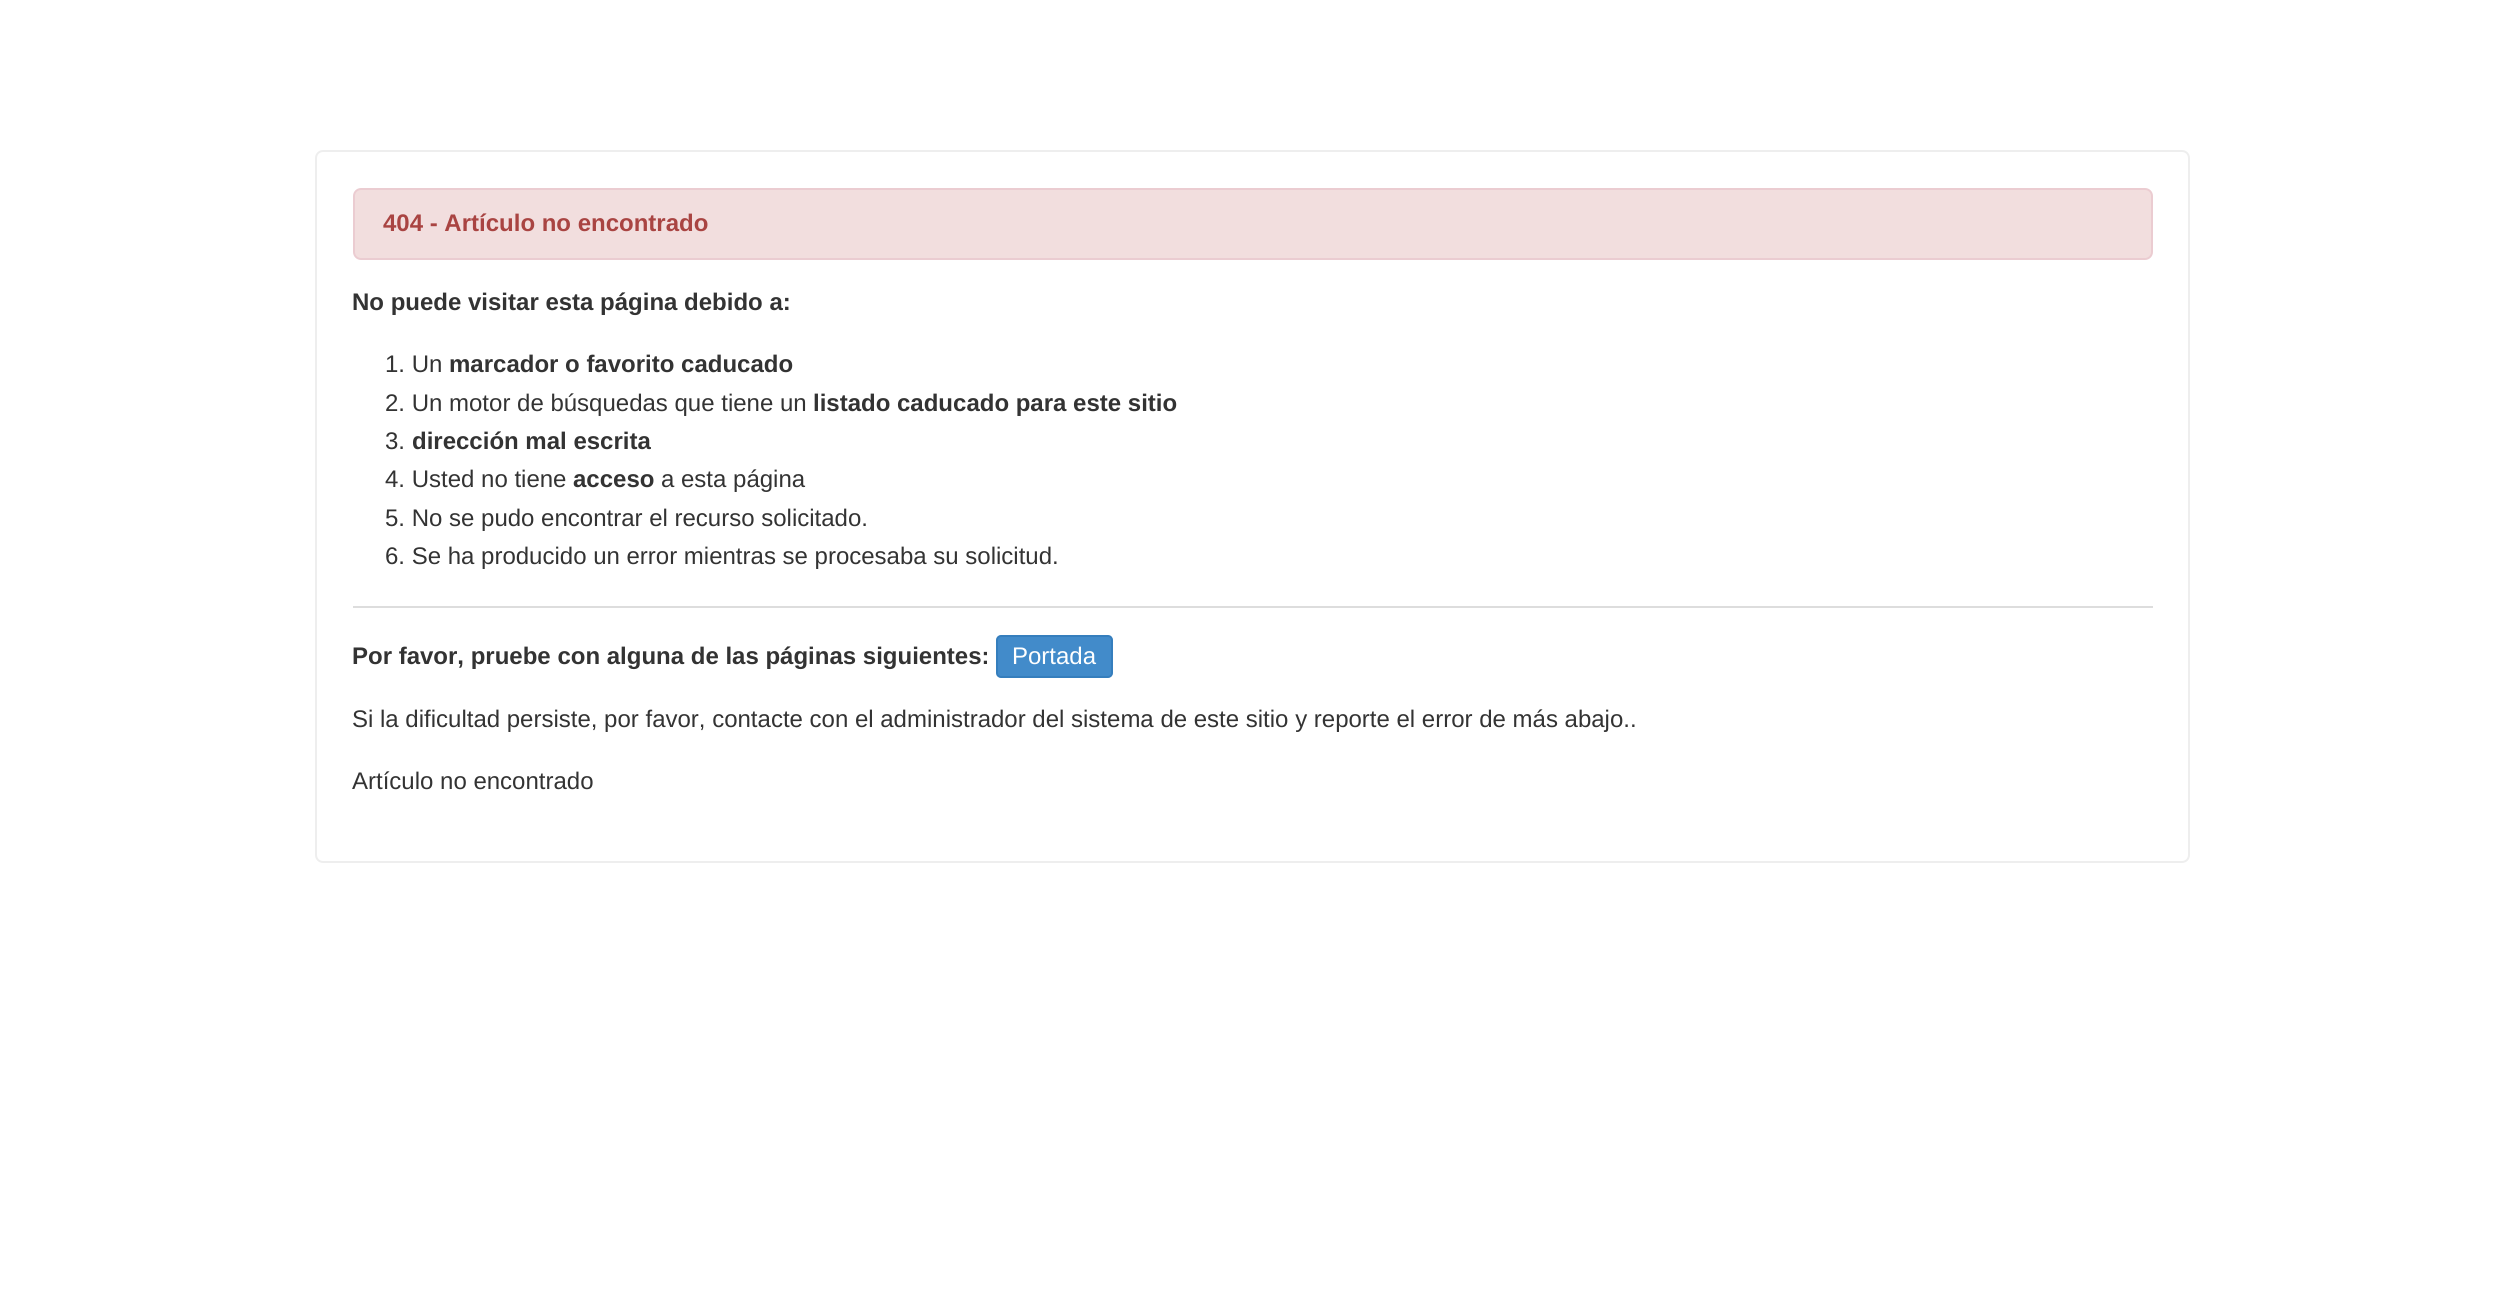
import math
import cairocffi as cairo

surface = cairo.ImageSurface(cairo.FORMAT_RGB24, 2503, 1309)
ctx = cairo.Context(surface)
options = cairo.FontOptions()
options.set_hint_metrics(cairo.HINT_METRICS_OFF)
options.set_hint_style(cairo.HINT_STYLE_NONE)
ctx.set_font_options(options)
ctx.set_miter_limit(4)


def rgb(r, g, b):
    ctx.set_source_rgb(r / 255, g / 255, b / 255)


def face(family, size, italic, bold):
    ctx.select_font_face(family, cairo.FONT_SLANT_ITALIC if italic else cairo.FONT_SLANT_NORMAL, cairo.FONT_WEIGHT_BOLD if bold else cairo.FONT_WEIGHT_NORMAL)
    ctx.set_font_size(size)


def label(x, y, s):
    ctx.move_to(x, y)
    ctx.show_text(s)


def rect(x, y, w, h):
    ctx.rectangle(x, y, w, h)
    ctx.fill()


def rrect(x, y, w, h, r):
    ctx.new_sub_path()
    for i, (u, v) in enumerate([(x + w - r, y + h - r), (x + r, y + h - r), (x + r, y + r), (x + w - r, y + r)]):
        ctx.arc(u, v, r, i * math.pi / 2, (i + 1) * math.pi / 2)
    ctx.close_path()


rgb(255, 255, 255)
ctx.paint()
rrect(316, 151, 1873, 711, 7)
rgb(238, 238, 238)
ctx.stroke()
rgb(242, 222, 222)
rrect(354, 189, 1798, 70, 7)
ctx.fill_preserve()
rgb(235, 204, 209)
ctx.stroke()
face('Liberation Sans', 24, 0, 1)
rgb(169, 68, 66)
label(383, 231, '404 - Artículo no encontrado')
rgb(51, 51, 51)
label(352, 310, 'No puede visitar esta página debido a:')
rgb(221, 221, 221)
rect(353, 606, 1800, 2)
face('Liberation Sans', 24, 0, 0)
rgb(51, 51, 51)
label(385, 372, '1. Un')
face('Liberation Sans', 24, 0, 1)
label(449, 372, 'marcador o favorito caducado')
face('Liberation Sans', 24, 0, 0)
label(385, 411, '2. Un motor de búsquedas que tiene un')
face('Liberation Sans', 24, 0, 1)
label(813, 411, 'listado caducado para este sitio')
face('Liberation Sans', 24, 0, 0)
label(385, 449, '3.')
face('Liberation Sans', 24, 0, 1)
label(412, 449, 'dirección mal escrita')
face('Liberation Sans', 24, 0, 0)
label(385, 487, '4. Usted no tiene')
face('Liberation Sans', 24, 0, 1)
label(573, 487, 'acceso')
face('Liberation Sans', 24, 0, 0)
label(661, 487, 'a esta página')
label(385, 526, '5. No se pudo encontrar el recurso solicitado.')
label(385, 564, '6. Se ha producido un error mientras se procesaba su solicitud.')
face('Liberation Sans', 24, 0, 1)
label(352, 664, 'Por favor, pruebe con alguna de las páginas siguientes:')
rgb(66, 139, 202)
rrect(997, 636, 115, 41, 4)
ctx.fill_preserve()
rgb(53, 126, 189)
ctx.stroke()
face('Liberation Sans', 24, 0, 0)
rgb(255, 255, 255)
label(1012, 664, 'Portada')
rgb(51, 51, 51)
label(352, 727, 'Si la dificultad persiste, por favor, contacte con el administrador del sistema de este sitio y reporte el error de más abajo..')
label(352, 789, 'Artículo no encontrado')
surface.write_to_png('render.png')
